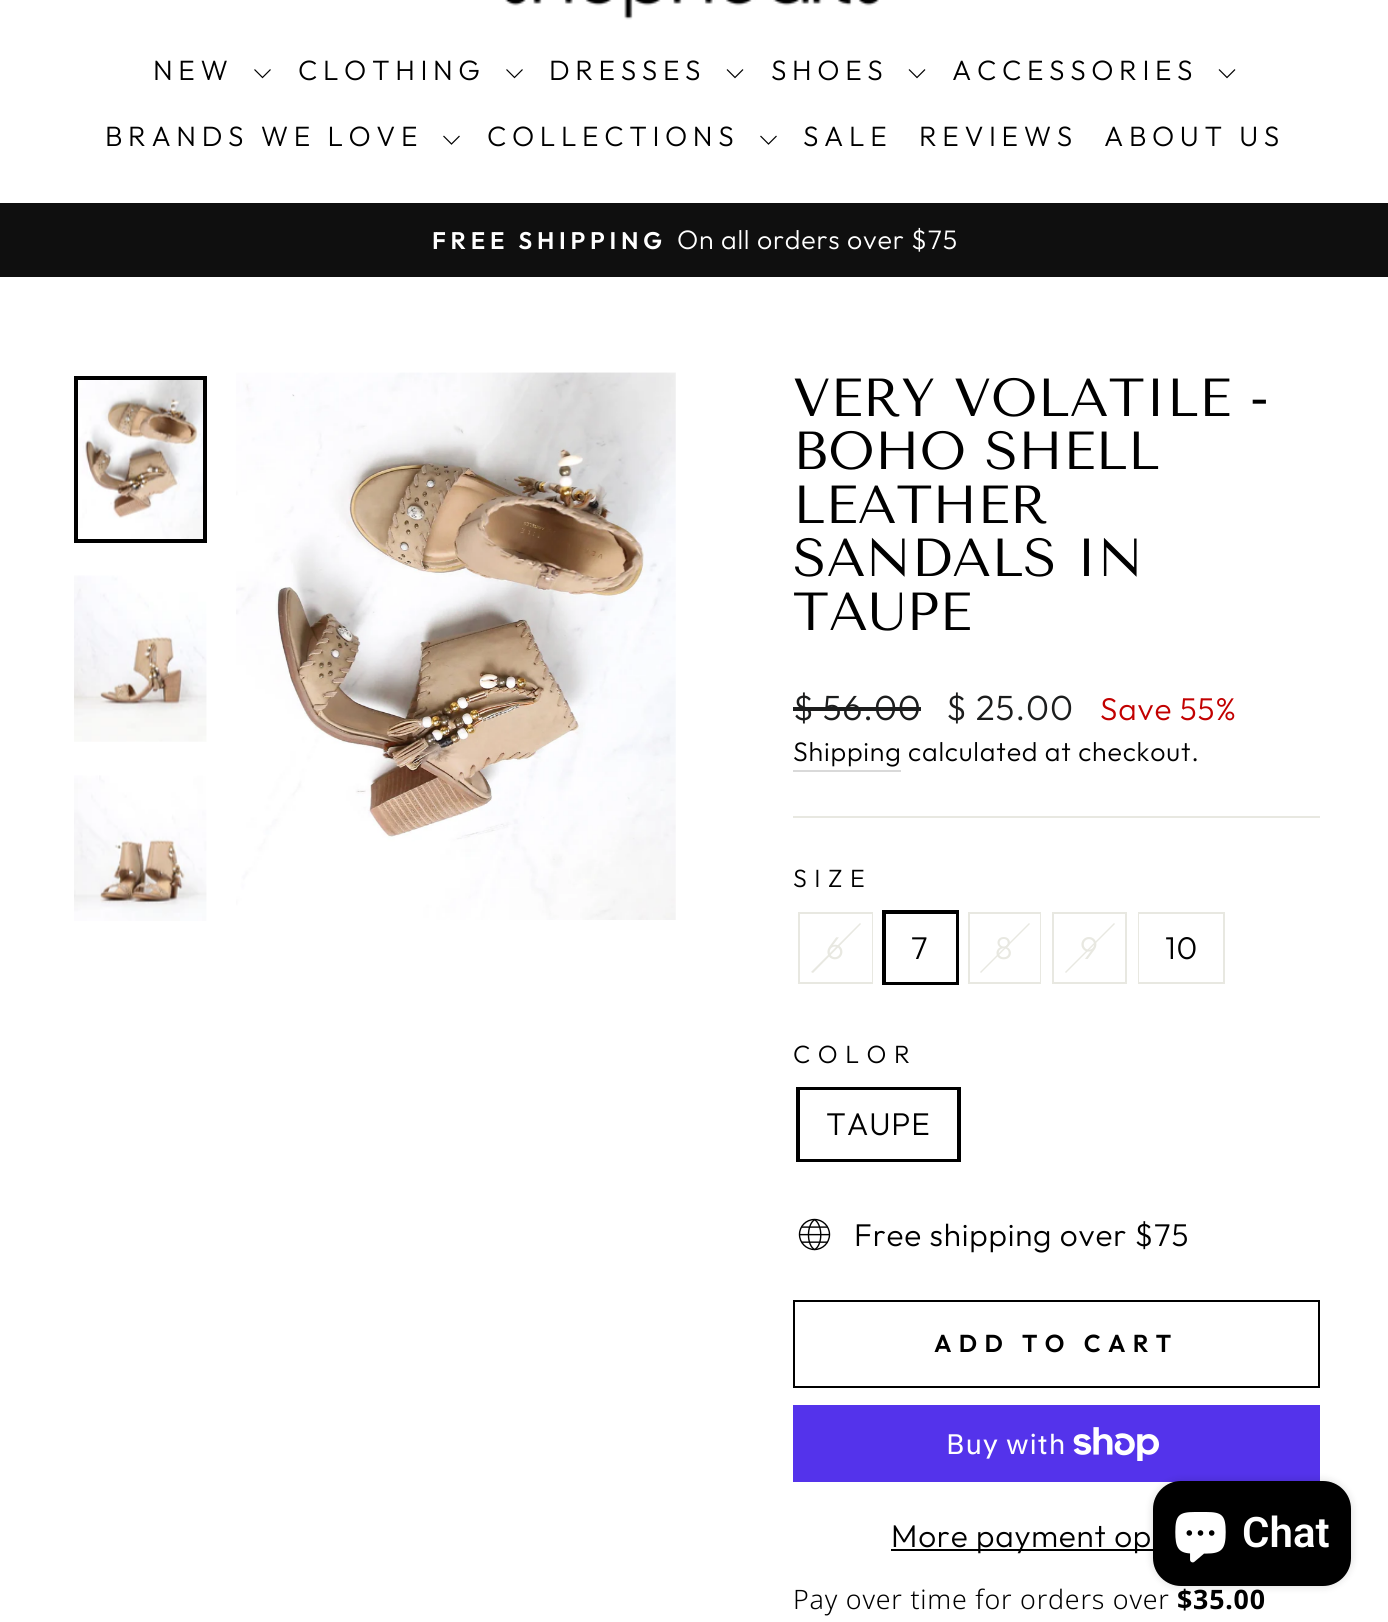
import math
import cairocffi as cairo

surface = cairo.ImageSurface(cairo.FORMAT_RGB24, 1388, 1622)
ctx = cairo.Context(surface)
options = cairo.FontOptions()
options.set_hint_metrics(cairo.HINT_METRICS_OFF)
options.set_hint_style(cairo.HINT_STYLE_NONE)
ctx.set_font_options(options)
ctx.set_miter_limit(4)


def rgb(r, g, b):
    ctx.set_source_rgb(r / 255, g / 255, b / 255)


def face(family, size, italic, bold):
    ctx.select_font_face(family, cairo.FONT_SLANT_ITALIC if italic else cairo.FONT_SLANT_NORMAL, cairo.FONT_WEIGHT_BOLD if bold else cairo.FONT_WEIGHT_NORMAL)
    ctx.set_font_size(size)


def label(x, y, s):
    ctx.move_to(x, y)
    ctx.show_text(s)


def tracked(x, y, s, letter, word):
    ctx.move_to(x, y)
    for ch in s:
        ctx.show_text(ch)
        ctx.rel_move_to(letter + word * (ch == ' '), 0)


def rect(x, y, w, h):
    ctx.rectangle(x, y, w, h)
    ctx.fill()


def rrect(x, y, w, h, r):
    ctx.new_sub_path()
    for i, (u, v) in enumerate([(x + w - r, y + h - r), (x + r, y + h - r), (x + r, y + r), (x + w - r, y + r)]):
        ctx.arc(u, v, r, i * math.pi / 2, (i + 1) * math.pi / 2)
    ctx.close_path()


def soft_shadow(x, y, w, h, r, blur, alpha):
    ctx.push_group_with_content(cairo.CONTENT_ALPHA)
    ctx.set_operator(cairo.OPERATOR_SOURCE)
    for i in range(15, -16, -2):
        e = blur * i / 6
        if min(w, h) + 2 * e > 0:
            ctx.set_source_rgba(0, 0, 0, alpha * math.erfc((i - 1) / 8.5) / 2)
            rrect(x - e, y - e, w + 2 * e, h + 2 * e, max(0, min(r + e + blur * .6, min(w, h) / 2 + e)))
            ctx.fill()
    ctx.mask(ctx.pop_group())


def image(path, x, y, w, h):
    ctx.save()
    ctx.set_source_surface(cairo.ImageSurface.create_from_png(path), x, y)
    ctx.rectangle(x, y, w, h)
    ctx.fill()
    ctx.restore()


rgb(255, 255, 255)
ctx.paint()
image('image0.png', 505, 0, 374, 20)
face('Outfit Light', 28, 0, 0)
rgb(0, 0, 0)
tracked(153, 80, 'NEW', 5.6, 0)
ctx.new_path()
ctx.move_to(254.5, 69.5)
ctx.line_to(262.5, 77.5)
ctx.line_to(270.5, 69.5)
ctx.set_line_width(1.2)
ctx.stroke()
tracked(298, 80, 'CLOTHING', 5.6, 0)
ctx.new_path()
ctx.move_to(506.5, 69.5)
ctx.line_to(514.5, 77.5)
ctx.line_to(522.5, 69.5)
ctx.stroke()
tracked(549, 80, 'DRESSES', 5.6, 0)
ctx.new_path()
ctx.move_to(727, 69.5)
ctx.line_to(735, 77.5)
ctx.line_to(743, 69.5)
ctx.stroke()
tracked(771, 80, 'SHOES', 5.6, 0)
ctx.new_path()
ctx.move_to(909, 69.5)
ctx.line_to(917, 77.5)
ctx.line_to(925, 69.5)
ctx.stroke()
tracked(952, 80, 'ACCESSORIES', 5.6, 0)
ctx.new_path()
ctx.move_to(1219, 69.5)
ctx.line_to(1227, 77.5)
ctx.line_to(1235, 69.5)
ctx.stroke()
tracked(105, 146, 'BRANDS WE LOVE', 5.6, 0)
ctx.new_path()
ctx.move_to(443.5, 136)
ctx.line_to(451.5, 144)
ctx.line_to(459.5, 136)
ctx.stroke()
tracked(487, 146, 'COLLECTIONS', 5.6, 0)
ctx.new_path()
ctx.move_to(760.5, 136)
ctx.line_to(768.5, 144)
ctx.line_to(776.5, 136)
ctx.stroke()
tracked(803, 146, 'SALE', 5.6, 0)
tracked(919, 146, 'REVIEWS', 5.6, 0)
tracked(1104, 146, 'ABOUT US', 5.6, 0)
rgb(15, 15, 15)
rect(0, 203, 1388, 74)
face('Outfit SemiBold', 24, 0, 0)
rgb(255, 255, 255)
tracked(432, 249, 'FREE SHIPPING', 4.75, 0)
face('Outfit Light', 26.75, 0, 0)
tracked(677, 249, 'On all orders over $75', 0.8, 0)
image('image1.png', 78, 380, 125, 159)
ctx.rectangle(76, 378, 129, 163)
rgb(0, 0, 0)
ctx.set_line_width(4)
ctx.stroke()
image('image2.png', 74, 575, 133, 167)
image('image3.png', 74, 775, 133, 146)
image('image4.png', 236, 372, 440, 548)
face('Tenor Sans', 53.5, 0, 0)
label(793, 416, 'VERY VOLATILE -')
label(793, 469, 'BOHO SHELL')
label(793, 523, 'LEATHER')
label(793, 576, 'SANDALS IN')
label(793, 630, 'TAUPE')
face('Outfit Light', 35, 0, 0)
rgb(28, 29, 29)
tracked(793, 720, '$ 56.00', 0.8, 0)
rect(793, 707, 128, 4)
tracked(946, 720, '$ 25.00', 0.8, 0)
face('Outfit Light', 31.5, 0, 0)
rgb(194, 0, 0)
tracked(1100, 720, 'Save 55%', 0.8, 0)
rgb(217, 217, 217)
rect(793, 770, 108, 2)
face('Outfit Light', 26.75, 0, 0)
rgb(0, 0, 0)
tracked(793, 761, 'Shipping', 0.8, 0)
tracked(908, 761, 'calculated at checkout.', 0.8, 0)
rgb(232, 232, 225)
rect(793, 816, 527, 2)
face('Outfit Light', 25, 0, 0)
rgb(0, 0, 0)
tracked(793, 887, 'SIZE', 7.5, 0)
ctx.rectangle(799, 913, 73, 70)
rgb(232, 232, 225)
ctx.set_line_width(2)
ctx.stroke()
rgb(255, 255, 255)
rect(871, 914, 1, 68)
rgb(232, 232, 225)
ctx.new_path()
ctx.move_to(860, 923)
ctx.line_to(861, 924)
ctx.line_to(813, 973)
ctx.line_to(811, 972)
ctx.close_path()
ctx.fill()
face('Outfit Light', 31.5, 0, 0)
tracked(826, 959, '6', 0.8, 0)
ctx.rectangle(884, 912, 73, 71)
rgb(0, 0, 0)
ctx.set_line_width(4)
ctx.stroke()
rgb(255, 255, 255)
rect(886, 914, 70, 68)
rgb(0, 0, 0)
tracked(911, 959, '7', 0.8, 0)
ctx.rectangle(969, 913, 71, 70)
rgb(232, 232, 225)
ctx.set_line_width(2)
ctx.stroke()
rgb(255, 255, 255)
rect(1039, 914, 1, 68)
rgb(232, 232, 225)
ctx.new_path()
ctx.move_to(1029, 923)
ctx.line_to(1030, 924)
ctx.line_to(981, 973)
ctx.line_to(980, 972)
ctx.close_path()
ctx.fill()
tracked(995, 959, '8', 0.8, 0)
ctx.rectangle(1053, 913, 73, 70)
ctx.stroke()
ctx.new_path()
ctx.move_to(1114, 923)
ctx.line_to(1115, 924)
ctx.line_to(1066, 973)
ctx.line_to(1065, 972)
ctx.close_path()
ctx.fill()
tracked(1080, 959, '9', 0.8, 0)
ctx.rectangle(1139, 913, 85, 70)
ctx.stroke()
rgb(255, 255, 255)
rect(1139, 914, 1, 68)
rgb(0, 0, 0)
tracked(1165, 959, '10', 0.8, 0)
face('Outfit Light', 25, 0, 0)
tracked(793, 1063, 'COLOR', 7.5, 0)
ctx.rectangle(798, 1089, 161, 71)
ctx.set_line_width(4)
ctx.stroke()
rgb(255, 255, 255)
rect(800, 1090, 157, 69)
face('Outfit Light', 31.5, 0, 0)
rgb(0, 0, 0)
tracked(826, 1135, 'TAUPE', 0.8, 0)
image('image5.png', 798, 1218, 33, 33)
tracked(854, 1246, 'Free shipping over $75', 0.8, 0)
ctx.rectangle(794, 1301, 525, 86)
ctx.set_line_width(2)
ctx.stroke()
face('Outfit SemiBold', 24.5, 0, 0)
tracked(934, 1352, 'ADD TO CART', 7.3, 0)
rgb(84, 51, 235)
rect(793, 1405, 527, 77)
face('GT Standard', 28, 0, 0)
rgb(255, 255, 255)
tracked(946, 1454, 'Buy with', 0.8, 0)
image('image6.png', 1073, 1427, 86, 34)
rgb(0, 0, 0)
rect(891, 1549, 262, 2)
face('Outfit Light', 31.5, 0, 0)
tracked(891, 1547, 'More payment op', 0.8, 0)
face('Noto Sans Light', 26.75, 0, 0)
tracked(793, 1609, 'Pay over time for orders over', 0.8, 0)
face('Noto Sans', 26.75, 0, 1)
tracked(1177, 1609, '$35.00', 0.8, 0)
rgb(0, 0, 0)
soft_shadow(1153, 1481, 198, 105, 28, 4.5, 0.15)
rgb(0, 0, 0)
rrect(1153, 1481, 198, 105, 28)
ctx.fill()
image('image7.png', 1175, 1512, 51, 51)
face('Roboto SemiBold', 42, 0, 0)
rgb(255, 255, 255)
label(1242, 1547, 'Chat')
surface.write_to_png('render.png')
